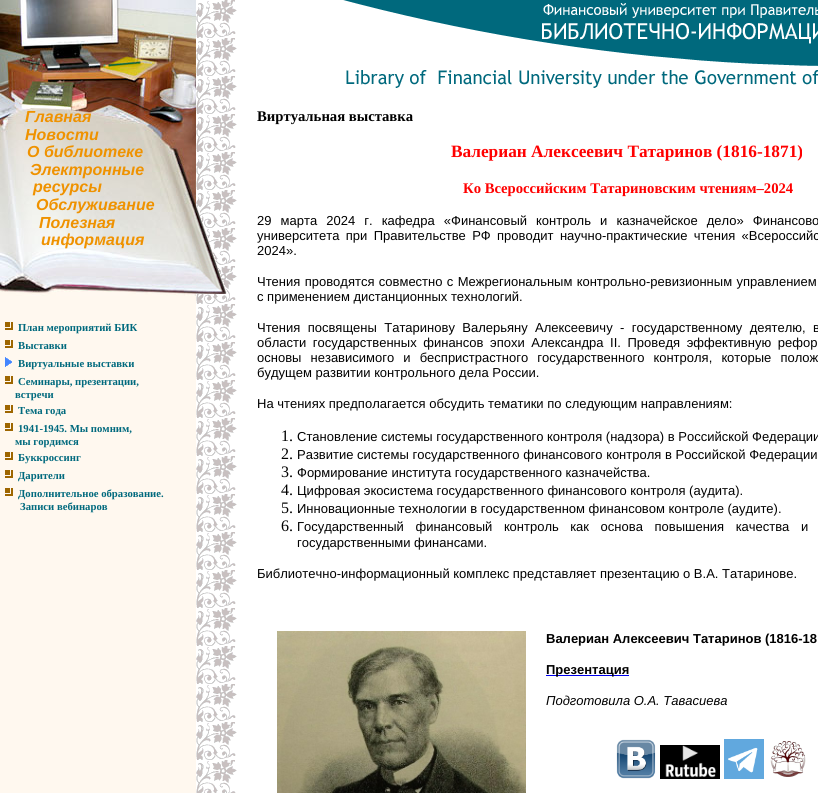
import math
import cairocffi as cairo

surface = cairo.ImageSurface(cairo.FORMAT_RGB24, 818, 793)
ctx = cairo.Context(surface)
options = cairo.FontOptions()
options.set_hint_metrics(cairo.HINT_METRICS_OFF)
options.set_hint_style(cairo.HINT_STYLE_NONE)
ctx.set_font_options(options)
ctx.set_miter_limit(4)


def rgb(r, g, b):
    ctx.set_source_rgb(r / 255, g / 255, b / 255)


def face(family, size, italic, bold):
    ctx.select_font_face(family, cairo.FONT_SLANT_ITALIC if italic else cairo.FONT_SLANT_NORMAL, cairo.FONT_WEIGHT_BOLD if bold else cairo.FONT_WEIGHT_NORMAL)
    ctx.set_font_size(size)


def label(x, y, s):
    ctx.move_to(x, y)
    ctx.show_text(s)


def tracked(x, y, s, letter, word):
    ctx.move_to(x, y)
    for ch in s:
        ctx.show_text(ch)
        ctx.rel_move_to(letter + word * (ch == ' '), 0)


def rect(x, y, w, h):
    ctx.rectangle(x, y, w, h)
    ctx.fill()


def image(path, x, y, w, h):
    ctx.save()
    ctx.set_source_surface(cairo.ImageSurface.create_from_png(path), x, y)
    ctx.rectangle(x, y, w, h)
    ctx.fill()
    ctx.restore()


rgb(255, 248, 239)
ctx.paint()
image('image0.png', 0, 0, 196, 108)
image('image1.png', 196, 0, 41, 793)
image('image2.png', 196, 204, 31, 90)
rgb(255, 255, 255)
rect(237, 0, 581, 793)
image('image3.png', 343, 0, 475, 88)
image('image4.png', 0, 108, 196, 188)
face('Liberation Sans', 16, 1, 1)
rgb(239, 146, 0)
label(25, 122, 'Главная')
label(25, 140, 'Новости')
label(27, 157, 'О библиотеке')
label(30, 175, 'Электронные')
label(33, 192, 'ресурсы')
label(36, 210, 'Обслуживание')
label(39, 228, 'Полезная')
label(41, 245, 'информация')
image('image5.png', 5, 322, 8, 8)
face('Liberation Serif', 10.7, 0, 1)
rgb(0, 105, 125)
label(18, 331, 'План мероприятий БИК')
image('image5.png', 5, 340, 8, 8)
label(18, 349, 'Выставки')
image('image6.png', 5, 357, 7, 10)
label(18, 367, 'Виртуальные выставки')
image('image5.png', 5, 376, 8, 8)
label(18, 385, 'Семинары, презентации,')
label(15, 398, 'встречи')
image('image5.png', 5, 405, 8, 8)
label(18, 414, 'Тема года')
image('image5.png', 5, 423, 8, 8)
label(18, 432, '1941-1945. Мы помним,')
label(15, 445, 'мы гордимся')
image('image5.png', 5, 452, 8, 8)
label(18, 461, 'Буккроссинг')
image('image5.png', 5, 470, 8, 8)
label(18, 479, 'Дарители')
image('image5.png', 5, 488, 8, 8)
label(18, 497, 'Дополнительное образование.')
label(20, 510, 'Записи вебинаров')
face('Liberation Serif', 14.7, 0, 1)
rgb(0, 0, 0)
label(257, 121, 'Виртуальная выставка')
face('Liberation Serif', 17.3, 0, 1)
rgb(255, 0, 0)
label(451, 157, 'Валериан Алексеевич Татаринов (1816-1871)')
face('Liberation Serif', 14.7, 0, 1)
label(463, 193, 'Ко Всероссийским Татариновским чтениям–2024')
face('Liberation Sans', 13, 0, 0)
rgb(0, 0, 0)
tracked(257, 225, '29 марта 2024 г. кафедра «Финансовый контроль и казначейское дело» Финансово', 0, 5.5)
tracked(257, 240, 'университета при Правительстве РФ проводит научно-практические чтения «Всероссийс', 0, 2.75)
label(257, 255, '2024».')
tracked(257, 286, 'Чтения проводятся совместно с Межрегиональным контрольно-ревизионным управлением', 0, 0.75)
label(257, 301, 'с применением дистанционных технологий.')
tracked(257, 332, 'Чтения посвящены Татаринову Валерьяну Алексеевичу - государственному деятелю, в', 0, 3.75)
tracked(257, 347, 'области государственных финансов эпохи Александра II. Проведя эффективную рефор', 0, 3)
tracked(257, 362, 'основы независимого и беспристрастного государственного контроля, которые полож', 0, 5.5)
label(257, 377, 'будущем развитии контрольного дела России.')
label(257, 408, 'На чтениях предполагается обсудить тематики по следующим направлениям:')
face('Liberation Serif', 16, 0, 0)
label(281, 441, '1.')
face('Liberation Sans', 13, 0, 0)
label(297, 441, 'Становление системы государственного контроля (надзора) в Российской Федерации')
face('Liberation Serif', 16, 0, 0)
label(281, 459, '2.')
face('Liberation Sans', 13, 0, 0)
label(297, 459, 'Развитие системы государственного финансового контроля в Российской Федерации')
face('Liberation Serif', 16, 0, 0)
label(281, 477, '3.')
face('Liberation Sans', 13, 0, 0)
label(297, 477, 'Формирование института государственного казначейства.')
face('Liberation Serif', 16, 0, 0)
label(281, 495, '4.')
face('Liberation Sans', 13, 0, 0)
label(297, 495, 'Цифровая экосистема государственного финансового контроля (аудита).')
face('Liberation Serif', 16, 0, 0)
label(281, 513, '5.')
face('Liberation Sans', 13, 0, 0)
label(297, 513, 'Инновационные технологии в государственном финансовом контроле (аудите).')
face('Liberation Serif', 16, 0, 0)
label(281, 531, '6.')
face('Liberation Sans', 13, 0, 0)
tracked(297, 531, 'Государственный финансовый контроль как основа повышения качества и', 0, 8)
label(297, 547, 'государственными финансами.')
label(257, 578, 'Библиотечно-информационный комплекс представляет презентацию о В.А. Татаринове.')
image('image7.png', 277, 631, 249, 162)
face('Liberation Sans', 13, 0, 1)
label(546, 643, 'Валериан Алексеевич Татаринов (1816-18')
rgb(0, 0, 238)
rect(546, 675, 83, 1)
rgb(0, 0, 0)
label(546, 674, 'Презентация')
face('Liberation Sans', 13, 1, 0)
label(546, 705, 'Подготовила О.А. Тавасиева')
image('image8.png', 616, 739, 40, 40)
image('image9.png', 660, 745, 60, 34)
image('image10.png', 724, 739, 40, 40)
image('image11.png', 770, 741, 36, 36)
surface.write_to_png('render.png')
